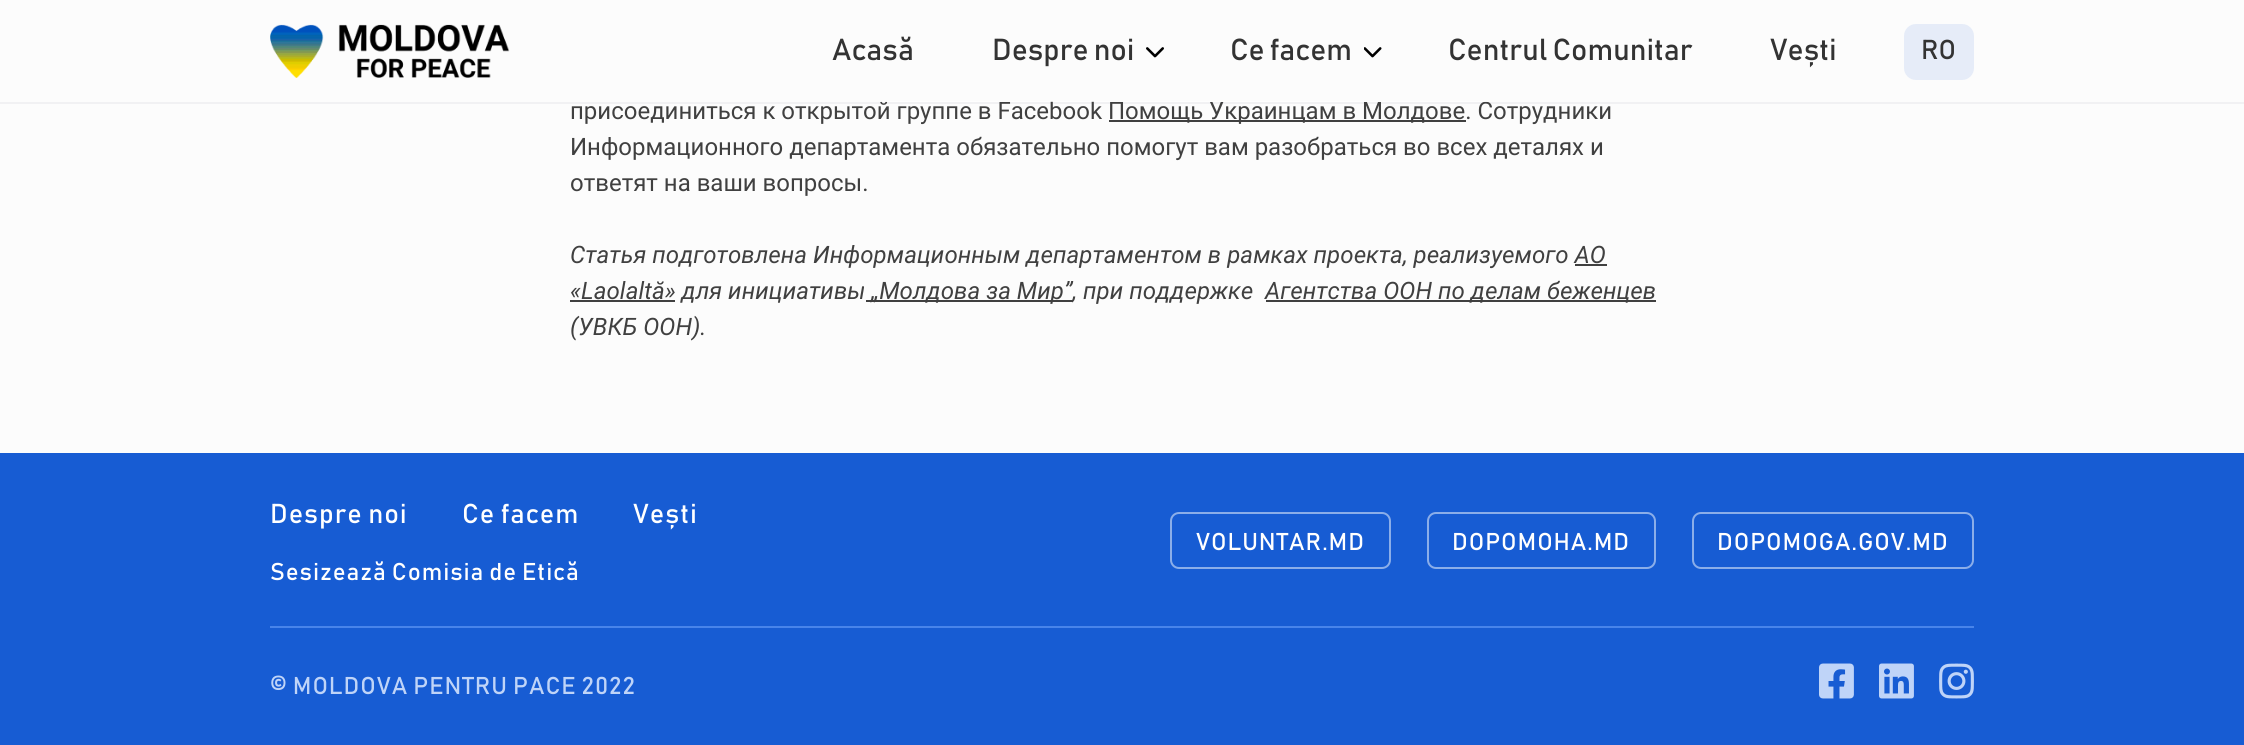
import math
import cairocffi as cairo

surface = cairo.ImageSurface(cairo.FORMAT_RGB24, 2244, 745)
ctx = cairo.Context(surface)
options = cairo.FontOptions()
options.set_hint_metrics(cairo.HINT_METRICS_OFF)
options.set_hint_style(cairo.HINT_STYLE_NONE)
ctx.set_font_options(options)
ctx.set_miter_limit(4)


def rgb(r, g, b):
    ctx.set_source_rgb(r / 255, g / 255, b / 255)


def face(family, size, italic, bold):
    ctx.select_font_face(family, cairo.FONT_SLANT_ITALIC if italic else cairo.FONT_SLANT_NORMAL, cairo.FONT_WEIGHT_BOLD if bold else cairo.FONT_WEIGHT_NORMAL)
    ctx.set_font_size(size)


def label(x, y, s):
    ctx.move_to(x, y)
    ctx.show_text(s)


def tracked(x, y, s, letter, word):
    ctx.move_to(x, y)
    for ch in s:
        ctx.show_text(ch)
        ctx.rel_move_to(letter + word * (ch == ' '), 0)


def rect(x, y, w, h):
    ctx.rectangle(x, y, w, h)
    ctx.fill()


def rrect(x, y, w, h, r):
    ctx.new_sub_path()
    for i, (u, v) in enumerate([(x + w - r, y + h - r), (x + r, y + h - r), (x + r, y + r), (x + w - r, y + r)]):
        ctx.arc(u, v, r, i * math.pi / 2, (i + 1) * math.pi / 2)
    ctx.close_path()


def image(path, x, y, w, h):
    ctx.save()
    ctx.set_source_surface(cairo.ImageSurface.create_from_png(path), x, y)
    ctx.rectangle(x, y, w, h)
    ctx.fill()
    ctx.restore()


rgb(252, 252, 252)
ctx.paint()
ctx.set_source_rgba(0.137, 0.094, 0.259, 0.05)
rect(0, 102, 2244, 2)
face('Roboto', 24, 0, 0)
rgb(64, 64, 64)
label(570, 119, 'присоединиться к открытой группе в Facebook')
rect(1109, 120, 357, 2)
label(1108, 119, 'Помощь Украинцам в Молдове. Сотрудники')
ctx.set_source_rgba(1, 1, 1, 0.8)
rect(880, 101, 608, 1)
image('image0.png', 270, 24, 240, 54)
face('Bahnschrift', 30, 0, 0)
rgb(51, 51, 51)
label(832, 60, 'Acasă')
image('image1.png', 1146, 47, 18, 11)
label(992, 60, 'Despre noi')
image('image2.png', 1364, 47, 18, 11)
label(1230, 60, 'Ce facem')
label(1448, 60, 'Centrul Comunitar')
label(1770, 60, 'Vești')
rgb(230, 236, 248)
rrect(1904, 24, 70, 56, 12)
ctx.fill()
face('Bahnschrift', 27, 0, 0)
rgb(51, 51, 51)
label(1921, 59, 'RO')
face('Roboto', 24, 0, 0)
rgb(64, 64, 64)
label(570, 155, 'Информационного департамента обязательно помогут вам разобраться во всех деталях и')
label(570, 191, 'ответят на ваши вопросы.')
face('Roboto', 24, 1, 0)
label(570, 263, 'Статья подготовлена Информационным департаментом в рамках проекта, реализуемого AO')
rect(1575, 264, 32, 2)
rect(570, 300, 105, 2)
label(570, 299, '«Laolaltă» для инициативы')
rect(866, 300, 207, 2)
label(871, 299, '„Молдова за Мир”, при поддержке')
rect(1266, 300, 390, 2)
label(1265, 299, 'Агентства ООН по делам беженцев')
label(570, 335, '(УВКБ ООН).')
rgb(23, 92, 211)
rect(0, 453, 2244, 292)
face('Bahnschrift', 27, 0, 0)
rgb(255, 255, 255)
tracked(270, 523, 'Despre noi', 0.95, 0)
tracked(462, 523, 'Ce facem', 0.95, 0)
tracked(633, 523, 'Vești', 0.95, 0)
face('Bahnschrift', 24, 0, 0)
tracked(270, 580, 'Sesizează Comisia de Etică', 0.95, 0)
rrect(1171, 513, 219, 55, 8)
rgb(139, 174, 233)
ctx.stroke()
rgb(255, 255, 255)
tracked(1196, 550, 'VOLUNTAR.MD', 0.95, 0)
rrect(1428, 513, 227, 55, 8)
rgb(139, 174, 233)
ctx.stroke()
rgb(255, 255, 255)
tracked(1452, 550, 'DOPOMOHA.MD', 0.95, 0)
rrect(1693, 513, 280, 55, 8)
rgb(139, 174, 233)
ctx.stroke()
rgb(255, 255, 255)
tracked(1717, 550, 'DOPOMOGA.GOV.MD', 0.95, 0)
rgb(72, 132, 234)
rect(270, 626, 1704, 2)
rgb(191, 212, 248)
tracked(270, 694, '© MOLDOVA PENTRU PACE 2022', 0.95, 0)
image('image3.png', 1819, 663, 35, 36)
image('image4.png', 1879, 663, 35, 36)
image('image5.png', 1939, 663, 35, 36)
surface.write_to_png('render.png')
